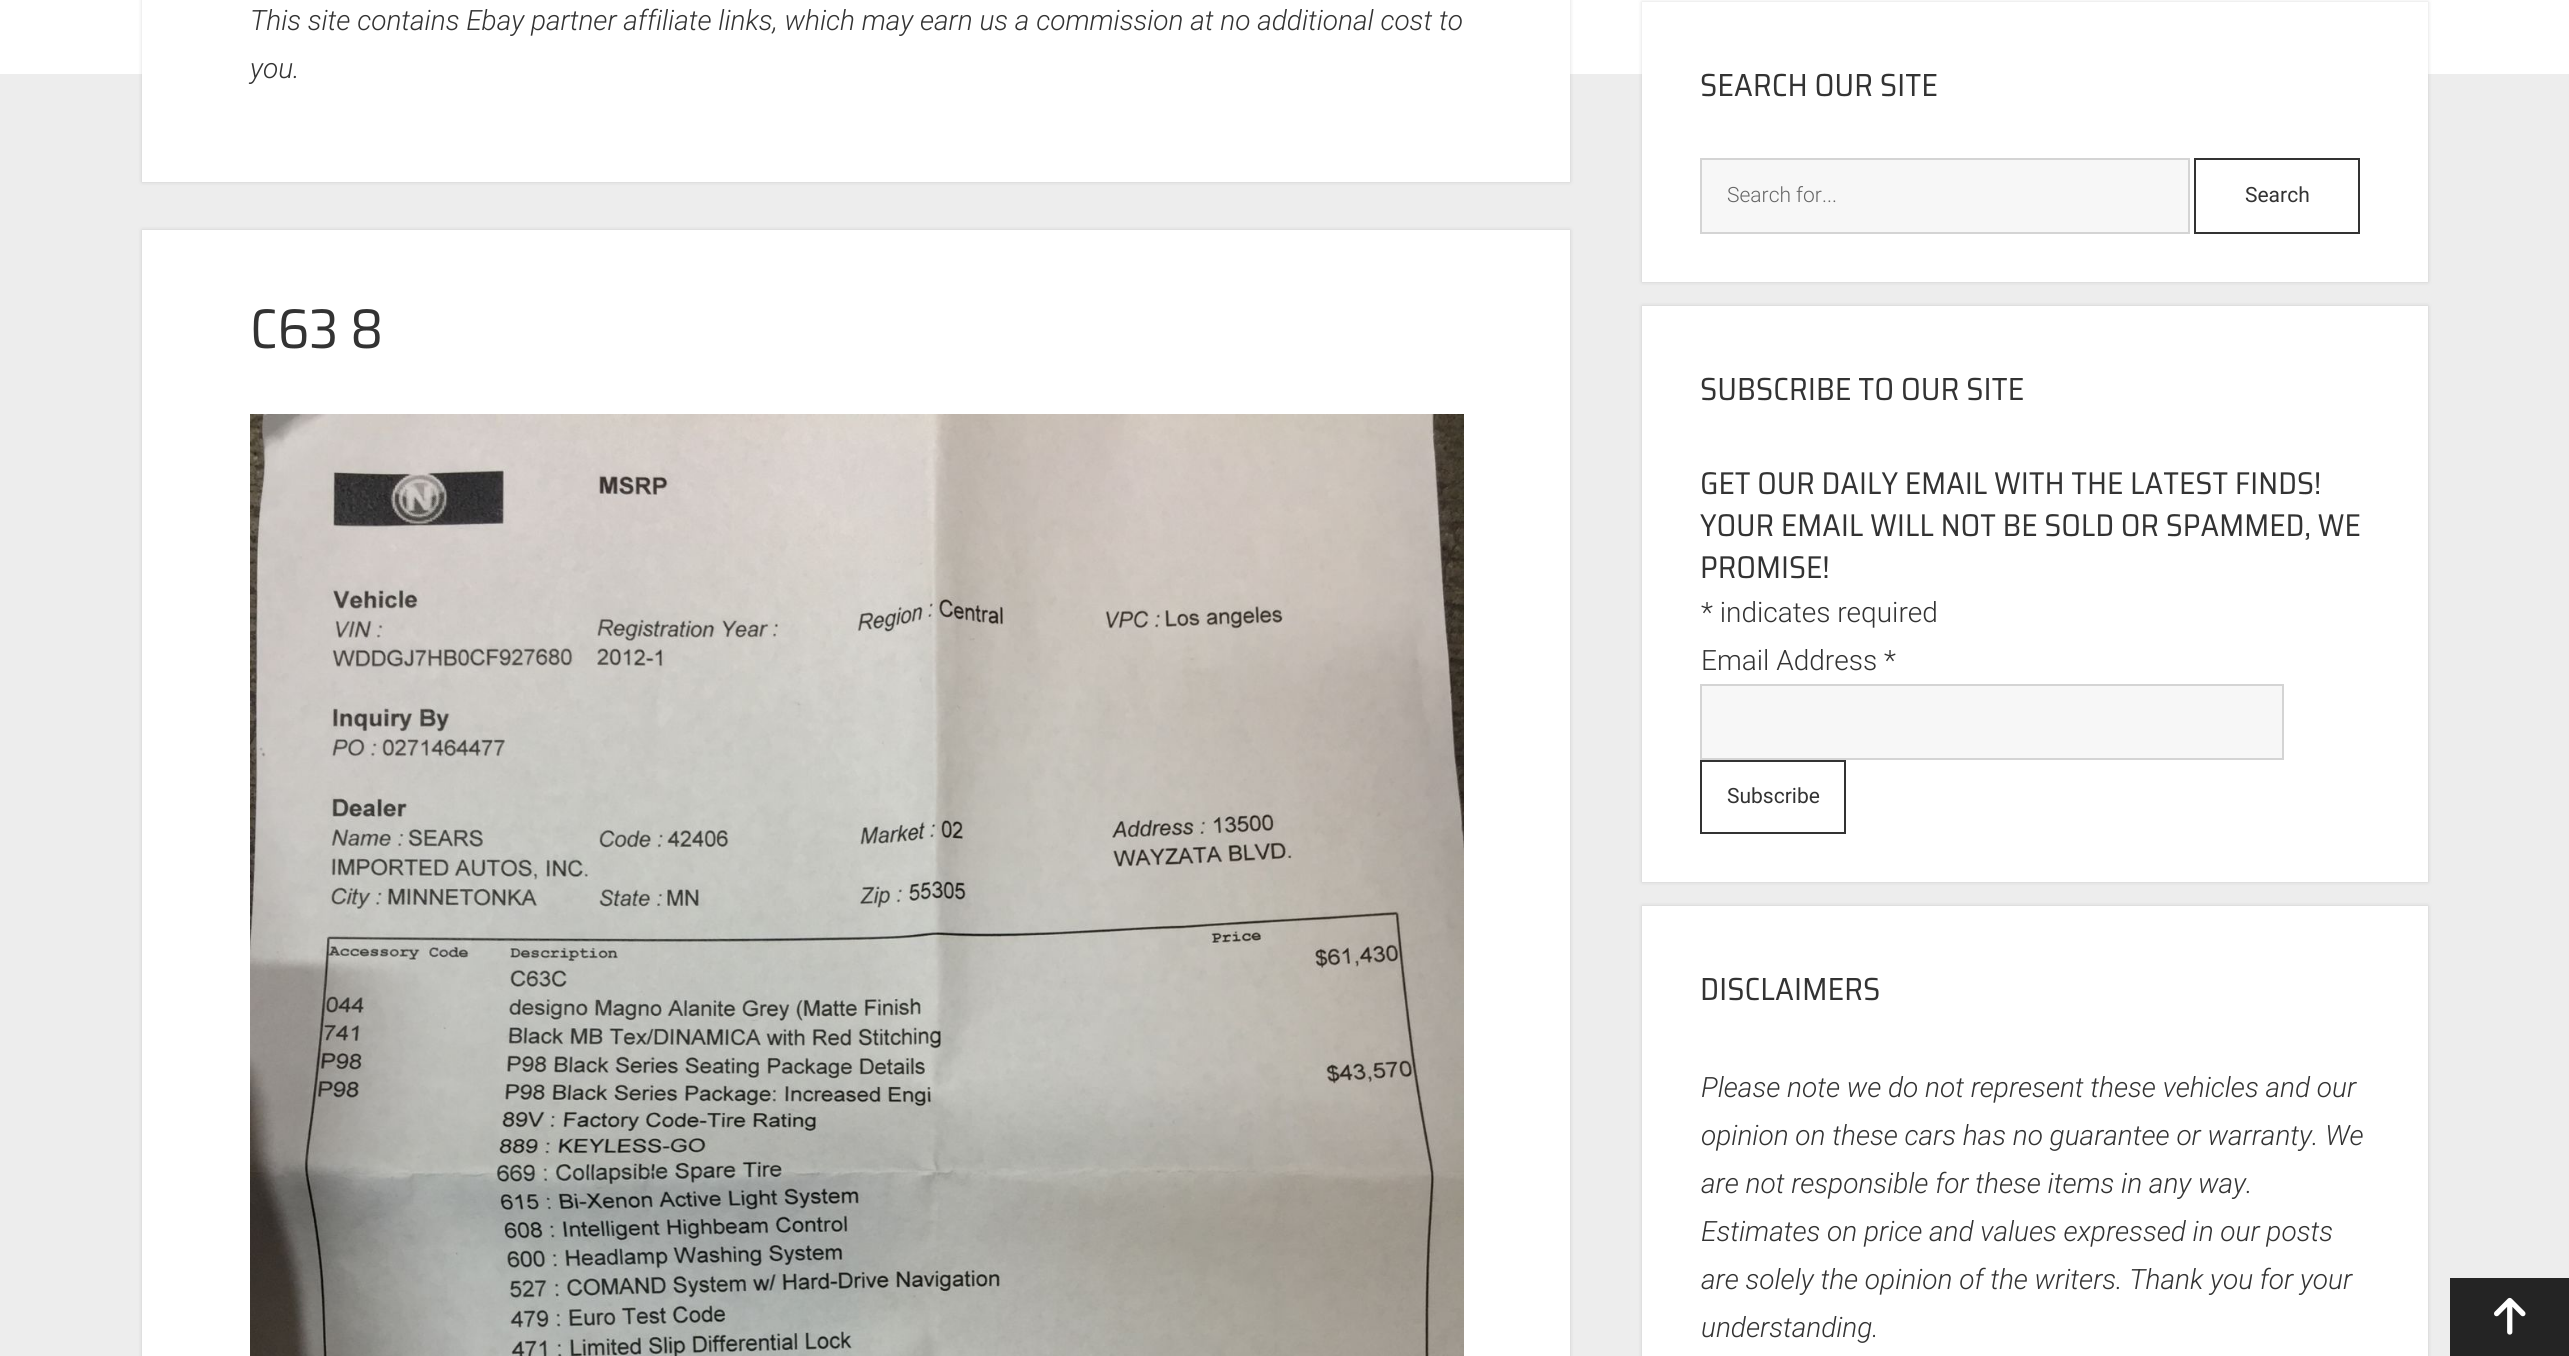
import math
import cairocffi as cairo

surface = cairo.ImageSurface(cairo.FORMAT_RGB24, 2569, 1356)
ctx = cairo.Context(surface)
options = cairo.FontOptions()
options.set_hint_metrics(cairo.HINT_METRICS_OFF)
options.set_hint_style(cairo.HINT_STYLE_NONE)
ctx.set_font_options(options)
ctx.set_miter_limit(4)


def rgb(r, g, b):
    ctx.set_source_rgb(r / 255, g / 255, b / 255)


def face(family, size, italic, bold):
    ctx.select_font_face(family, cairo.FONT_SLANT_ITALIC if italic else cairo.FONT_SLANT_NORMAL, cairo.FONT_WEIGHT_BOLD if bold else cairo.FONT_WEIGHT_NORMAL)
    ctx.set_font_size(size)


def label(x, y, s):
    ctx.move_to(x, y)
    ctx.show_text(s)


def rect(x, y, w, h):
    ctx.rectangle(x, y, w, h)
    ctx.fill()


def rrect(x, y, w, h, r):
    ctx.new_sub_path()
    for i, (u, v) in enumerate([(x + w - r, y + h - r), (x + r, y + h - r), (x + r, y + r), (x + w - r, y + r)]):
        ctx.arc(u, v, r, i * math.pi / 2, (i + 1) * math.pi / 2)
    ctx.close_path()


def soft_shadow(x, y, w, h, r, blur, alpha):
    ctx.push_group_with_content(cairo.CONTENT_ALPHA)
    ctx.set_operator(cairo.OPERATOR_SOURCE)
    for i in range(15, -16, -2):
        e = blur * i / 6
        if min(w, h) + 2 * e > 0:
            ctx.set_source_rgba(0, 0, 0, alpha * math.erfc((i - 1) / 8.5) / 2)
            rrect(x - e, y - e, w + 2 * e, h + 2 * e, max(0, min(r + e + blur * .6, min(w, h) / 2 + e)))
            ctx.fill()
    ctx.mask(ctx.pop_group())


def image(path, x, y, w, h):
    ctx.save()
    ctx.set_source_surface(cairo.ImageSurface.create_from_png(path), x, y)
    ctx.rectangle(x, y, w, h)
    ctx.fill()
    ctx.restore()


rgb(237, 237, 237)
ctx.paint()
rgb(255, 255, 255)
rect(0, 0, 2569, 74)
rgb(58, 58, 58)
soft_shadow(142, -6, 1428, 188, 0, 2, 0.2)
rgb(255, 255, 255)
rect(142, 0, 1428, 182)
face('Roboto Light', 28, 1, 0)
rgb(51, 51, 51)
label(250, 30, 'This site contains Ebay partner affiliate links, which may earn us a commission at no additional cost to')
label(250, 78, 'you.')
rgb(58, 58, 58)
soft_shadow(142, 230, 1428, 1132, 0, 2, 0.2)
rgb(255, 255, 255)
rect(142, 230, 1428, 1126)
image('image0.png', 253, 309, 127, 40)
image('image1.png', 250, 414, 1214, 942)
rgb(58, 58, 58)
soft_shadow(1642, 2, 786, 280, 0, 2, 0.2)
rgb(255, 255, 255)
rect(1642, 2, 786, 280)
image('image2.png', 1701, 73, 236, 24)
rgb(247, 247, 247)
ctx.rectangle(1701, 159, 488, 74)
ctx.fill_preserve()
rgb(212, 212, 212)
ctx.stroke()
face('Roboto Light', 21, 0, 0)
rgb(102, 102, 102)
label(1727, 202, 'Search for...')
ctx.rectangle(2195, 159, 164, 74)
rgb(51, 51, 51)
ctx.stroke()
face('Roboto', 21, 0, 0)
label(2245, 202, 'Search')
rgb(58, 58, 58)
soft_shadow(1642, 306, 786, 576, 0, 2, 0.2)
rgb(255, 255, 255)
rect(1642, 306, 786, 576)
image('image3.png', 1701, 377, 322, 24)
image('image4.png', 1702, 472, 618, 23)
image('image5.png', 1700, 514, 660, 26)
image('image6.png', 1702, 556, 126, 23)
face('Roboto Light', 28, 0, 0)
rgb(51, 51, 51)
label(1701, 622, '* indicates required')
label(1701, 670, 'Email Address *')
rgb(247, 247, 247)
ctx.rectangle(1701, 685, 582, 74)
ctx.fill_preserve()
rgb(212, 212, 212)
ctx.stroke()
ctx.rectangle(1701, 761, 144, 72)
rgb(51, 51, 51)
ctx.stroke()
face('Roboto', 21, 0, 0)
label(1727, 803, 'Subscribe')
rgb(58, 58, 58)
soft_shadow(1642, 906, 786, 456, 0, 2, 0.2)
rgb(255, 255, 255)
rect(1642, 906, 786, 450)
image('image7.png', 1702, 977, 177, 24)
face('Roboto Light', 28, 1, 0)
rgb(51, 51, 51)
label(1701, 1097, 'Please note we do not represent these vehicles and our')
label(1701, 1145, 'opinion on these cars has no guarantee or warranty. We')
label(1701, 1193, 'are not responsible for these items in any way.')
label(1701, 1241, 'Estimates on price and values expressed in our posts')
label(1701, 1289, 'are solely the opinion of the writers. Thank you for your')
label(1701, 1337, 'understanding.')
rgb(36, 36, 36)
rect(2450, 1278, 119, 78)
image('image8.png', 2494, 1297, 32, 38)
surface.write_to_png('render.png')
